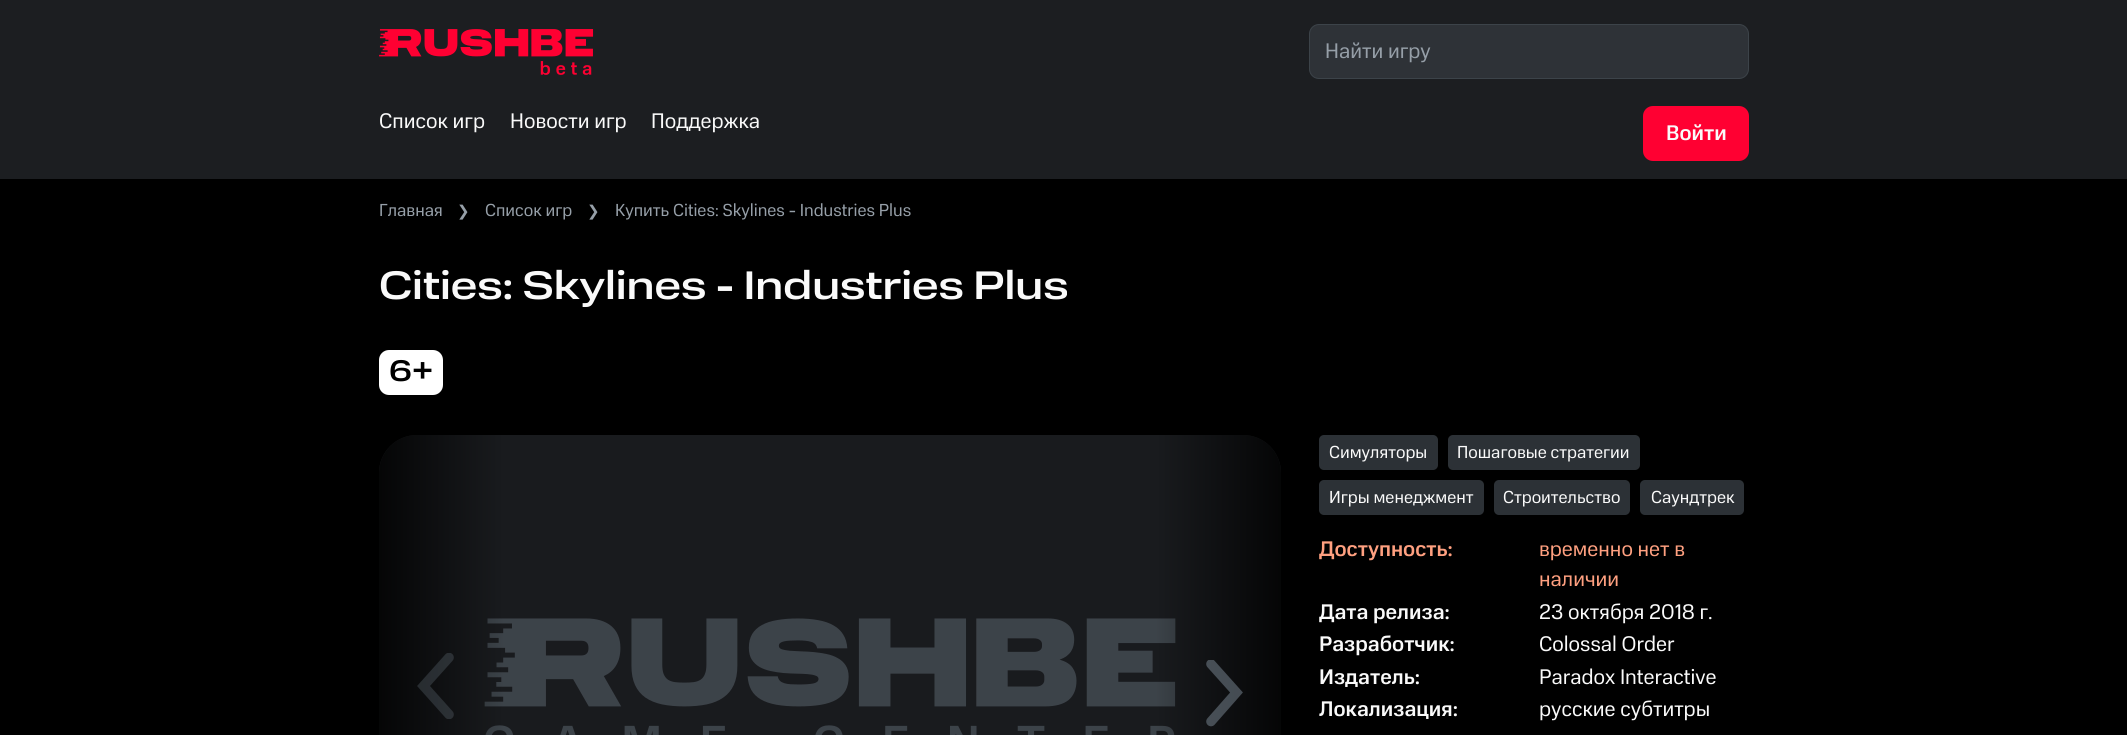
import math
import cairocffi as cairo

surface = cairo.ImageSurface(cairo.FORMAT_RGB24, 2127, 735)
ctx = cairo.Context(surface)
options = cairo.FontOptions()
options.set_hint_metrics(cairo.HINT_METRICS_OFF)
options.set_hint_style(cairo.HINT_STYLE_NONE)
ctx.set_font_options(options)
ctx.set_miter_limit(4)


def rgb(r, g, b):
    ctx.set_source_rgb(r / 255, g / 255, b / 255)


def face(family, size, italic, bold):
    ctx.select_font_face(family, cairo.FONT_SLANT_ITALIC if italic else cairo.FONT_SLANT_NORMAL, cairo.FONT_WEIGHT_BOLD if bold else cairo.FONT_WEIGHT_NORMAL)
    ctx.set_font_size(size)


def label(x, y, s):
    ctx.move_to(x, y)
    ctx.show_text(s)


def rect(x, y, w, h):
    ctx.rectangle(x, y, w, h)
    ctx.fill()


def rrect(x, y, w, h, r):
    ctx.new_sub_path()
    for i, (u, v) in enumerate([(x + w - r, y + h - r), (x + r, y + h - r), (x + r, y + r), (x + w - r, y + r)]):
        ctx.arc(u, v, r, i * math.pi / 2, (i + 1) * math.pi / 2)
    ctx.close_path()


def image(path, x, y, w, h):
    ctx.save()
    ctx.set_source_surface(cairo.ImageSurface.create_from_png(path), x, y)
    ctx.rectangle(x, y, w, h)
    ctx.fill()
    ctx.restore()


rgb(0, 0, 0)
ctx.paint()
rgb(28, 30, 33)
rect(0, 0, 2127, 179)
image('image0.png', 379, 29, 215, 46)
rgb(46, 50, 55)
rrect(1309.5, 24.5, 439, 54, 9.5)
ctx.fill_preserve()
rgb(60, 67, 73)
ctx.set_line_width(1)
ctx.stroke()
face('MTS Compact', 21.25, 0, 0)
rgb(150, 159, 168)
label(1325, 58, 'Найти игру')
rgb(250, 250, 250)
label(379, 128, 'Список игр')
label(510, 128, 'Новости игр')
label(651, 128, 'Поддержка')
rgb(255, 0, 50)
rrect(1643, 106, 106, 55, 10)
ctx.fill()
face('MTS Compact Medium', 21.25, 0, 0)
rgb(250, 250, 250)
label(1666, 140, 'Войти')
face('MTS Compact', 17.5, 0, 0)
rgb(150, 159, 168)
label(379, 216, 'Главная')
face('DejaVu Sans', 15, 0, 0)
label(457, 216, '❯')
face('MTS Compact', 17.5, 0, 0)
label(485, 216, 'Список игр')
face('DejaVu Sans', 15, 0, 0)
label(587, 216, '❯')
face('MTS Compact', 17.5, 0, 0)
label(615, 216, 'Купить Cities: Skylines - Industries Plus')
face('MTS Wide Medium', 40, 0, 0)
rgb(250, 250, 250)
label(379, 299, 'Cities: Skylines - Industries Plus')
rgb(255, 255, 255)
rrect(379, 350, 64, 45, 10)
ctx.fill()
face('MTS Wide Medium', 30, 0, 0)
rgb(0, 0, 0)
label(389, 381, '6+')
rgb(25, 27, 30)
rrect(379, 435, 902, 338, 38)
ctx.fill()
image('image1.png', 484, 618, 692, 117)
gradient = cairo.LinearGradient(379, 689, 504, 689)
gradient.add_color_stop_rgba(0, 0, 0, 0, 0.8)
gradient.add_color_stop_rgba(1, 0, 0, 0, 0)
ctx.set_source(gradient)
ctx.new_path()
ctx.move_to(417, 435)
ctx.line_to(504, 435)
ctx.line_to(504, 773)
ctx.line_to(417, 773)
ctx.curve_to(396, 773, 379, 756, 379, 735)
ctx.line_to(379, 473)
ctx.curve_to(379, 452, 396, 435, 417, 435)
ctx.close_path()
ctx.fill()
ctx.save()
ctx.rectangle(416, 653, 38, 66)
ctx.clip()
ctx.new_path()
ctx.move_to(449, 714.5)
ctx.line_to(423.5, 686)
ctx.line_to(449, 657.5)
ctx.set_source_rgba(0.498, 0.549, 0.6, 0.25)
ctx.set_line_width(9.6)
ctx.set_line_cap(cairo.LINE_CAP_ROUND)
ctx.stroke()
ctx.restore()
gradient = cairo.LinearGradient(1281, 689, 1156, 689)
gradient.add_color_stop_rgba(0, 0, 0, 0, 0.8)
gradient.add_color_stop_rgba(1, 0, 0, 0, 0)
ctx.set_source(gradient)
ctx.new_path()
ctx.move_to(1156, 435)
ctx.line_to(1243, 435)
ctx.curve_to(1264, 435, 1281, 452, 1281, 473)
ctx.line_to(1281, 735)
ctx.curve_to(1281, 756, 1264, 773, 1243, 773)
ctx.line_to(1156, 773)
ctx.close_path()
ctx.fill()
ctx.save()
ctx.rectangle(1206, 660, 38, 68)
ctx.clip()
ctx.new_path()
ctx.move_to(1211, 664)
ctx.line_to(1236.5, 692.5)
ctx.line_to(1211, 721.5)
ctx.set_source_rgba(0.498, 0.549, 0.6, 0.5)
ctx.set_line_width(9.6)
ctx.set_line_cap(cairo.LINE_CAP_ROUND)
ctx.stroke()
ctx.restore()
rgb(44, 49, 54)
rrect(1319, 435, 119, 35, 5)
ctx.fill()
face('MTS Compact', 17.5, 0, 0)
rgb(250, 250, 250)
label(1329, 458, 'Симуляторы')
rgb(44, 49, 54)
rrect(1448, 435, 192, 35, 5)
ctx.fill()
rgb(250, 250, 250)
label(1457, 458, 'Пошаговые стратегии')
rgb(44, 49, 54)
rrect(1319, 480, 165, 35, 5)
ctx.fill()
rgb(250, 250, 250)
label(1329, 503, 'Игры менеджмент')
rgb(44, 49, 54)
rrect(1494, 480, 136, 35, 5)
ctx.fill()
rgb(250, 250, 250)
label(1503, 503, 'Строительство')
rgb(44, 49, 54)
rrect(1640, 480, 104, 35, 5)
ctx.fill()
rgb(250, 250, 250)
label(1651, 503, 'Саундтрек')
face('MTS Compact Medium', 21.25, 0, 0)
rgb(255, 160, 128)
label(1319, 556, 'Доступность:')
face('MTS Compact', 21.25, 0, 0)
label(1539, 556, 'временно нет в')
label(1539, 586, 'наличии')
face('MTS Compact Medium', 21.25, 0, 0)
rgb(250, 250, 250)
label(1319, 619, 'Дата релиза:')
face('MTS Compact', 21.25, 0, 0)
label(1539, 619, '23 октября 2018 г.')
face('MTS Compact Medium', 21.25, 0, 0)
label(1319, 651, 'Разработчик:')
face('MTS Compact', 21.25, 0, 0)
label(1539, 651, 'Colossal Order')
face('MTS Compact Medium', 21.25, 0, 0)
label(1319, 684, 'Издатель:')
face('MTS Compact', 21.25, 0, 0)
label(1539, 684, 'Paradox Interactive')
face('MTS Compact Medium', 21.25, 0, 0)
label(1319, 716, 'Локализация:')
face('MTS Compact', 21.25, 0, 0)
label(1539, 716, 'русские субтитры')
surface.write_to_png('render.png')
